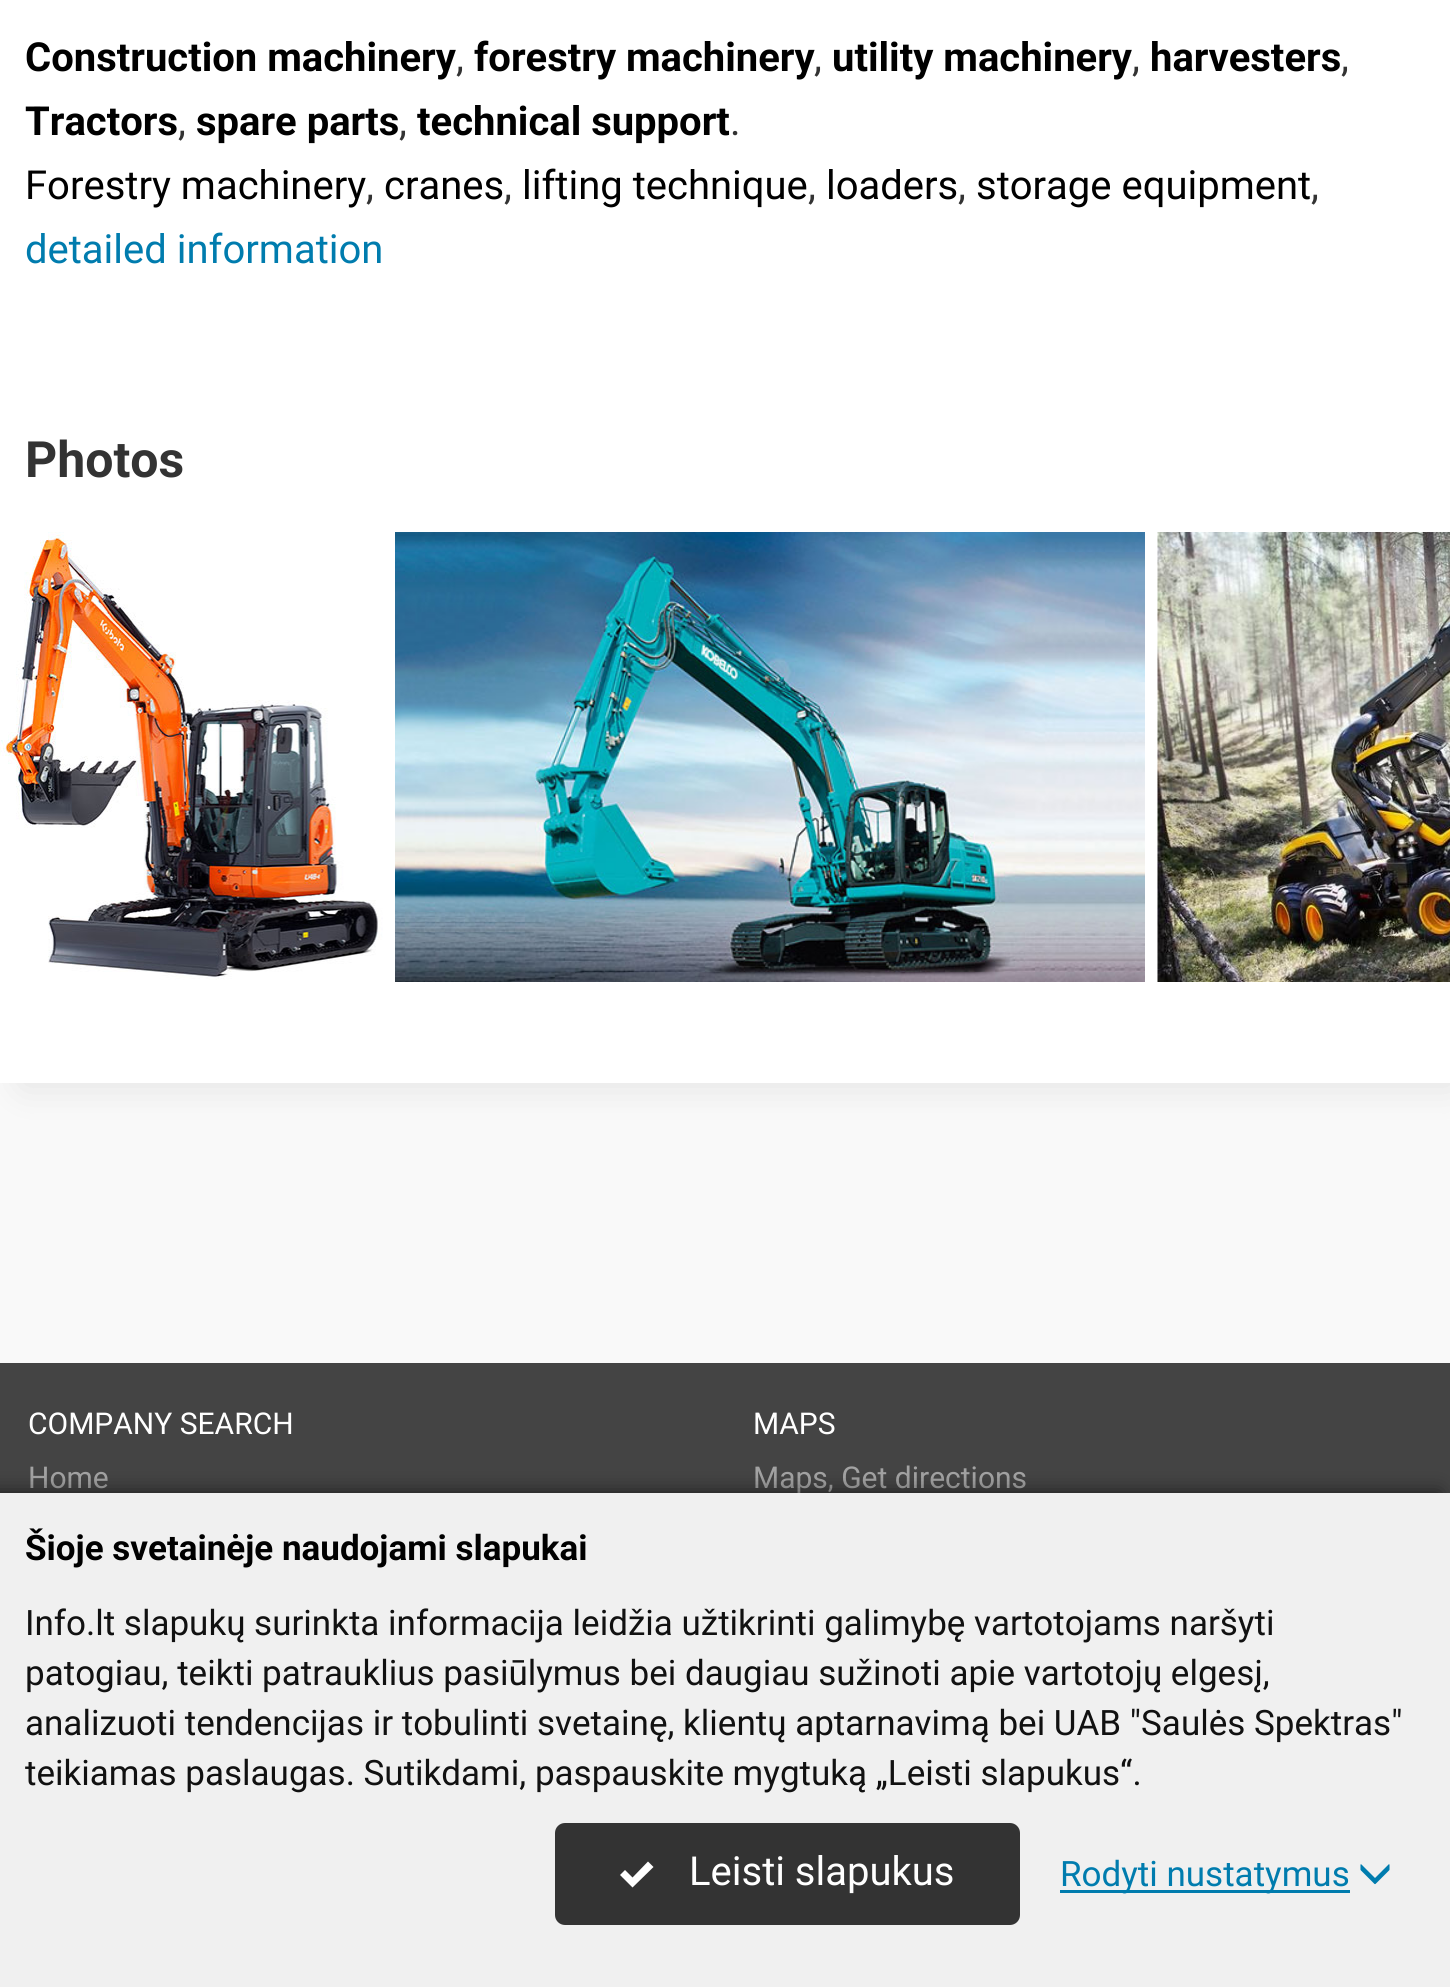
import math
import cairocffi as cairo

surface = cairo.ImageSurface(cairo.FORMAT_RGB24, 1450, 1987)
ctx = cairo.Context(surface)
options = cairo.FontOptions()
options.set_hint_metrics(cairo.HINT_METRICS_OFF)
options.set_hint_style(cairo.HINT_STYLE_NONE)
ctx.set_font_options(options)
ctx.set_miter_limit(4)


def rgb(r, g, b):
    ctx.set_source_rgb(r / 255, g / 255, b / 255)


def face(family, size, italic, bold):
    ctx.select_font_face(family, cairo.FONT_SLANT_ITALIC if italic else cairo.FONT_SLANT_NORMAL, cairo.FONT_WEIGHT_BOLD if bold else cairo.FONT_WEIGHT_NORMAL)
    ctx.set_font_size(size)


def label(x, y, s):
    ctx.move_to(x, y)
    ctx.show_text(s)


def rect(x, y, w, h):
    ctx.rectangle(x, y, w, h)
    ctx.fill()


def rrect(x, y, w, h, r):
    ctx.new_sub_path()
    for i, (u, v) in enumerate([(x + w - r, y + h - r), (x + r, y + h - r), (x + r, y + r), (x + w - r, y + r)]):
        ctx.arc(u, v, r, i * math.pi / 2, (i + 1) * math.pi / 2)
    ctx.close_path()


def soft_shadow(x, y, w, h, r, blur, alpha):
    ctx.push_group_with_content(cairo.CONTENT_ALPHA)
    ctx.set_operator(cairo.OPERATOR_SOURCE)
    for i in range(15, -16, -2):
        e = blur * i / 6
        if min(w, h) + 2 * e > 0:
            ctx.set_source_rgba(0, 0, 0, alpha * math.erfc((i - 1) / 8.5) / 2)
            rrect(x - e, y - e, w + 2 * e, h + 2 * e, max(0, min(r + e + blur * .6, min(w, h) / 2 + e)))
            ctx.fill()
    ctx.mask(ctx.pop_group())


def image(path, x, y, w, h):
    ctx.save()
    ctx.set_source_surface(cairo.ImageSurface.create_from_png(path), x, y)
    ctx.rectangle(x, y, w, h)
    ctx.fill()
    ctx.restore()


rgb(249, 249, 249)
ctx.paint()
rgb(0, 0, 0)
soft_shadow(23, -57, 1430, 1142, 0, 19, 0.1)
rgb(255, 255, 255)
rect(0, 0, 1450, 1083)
face('Roboto', 40, 0, 1)
rgb(0, 0, 0)
label(25, 71, 'Construction machinery')
face('Roboto', 40, 0, 0)
rgb(51, 51, 51)
label(456, 71, ',')
face('Roboto', 40, 0, 1)
rgb(0, 0, 0)
label(474, 71, 'forestry machinery')
face('Roboto', 40, 0, 0)
rgb(51, 51, 51)
label(814, 71, ',')
face('Roboto', 40, 0, 1)
rgb(0, 0, 0)
label(832, 71, 'utility machinery')
face('Roboto', 40, 0, 0)
rgb(51, 51, 51)
label(1132, 71, ',')
face('Roboto', 40, 0, 1)
rgb(0, 0, 0)
label(1150, 71, 'harvesters')
face('Roboto', 40, 0, 0)
rgb(51, 51, 51)
label(1341, 71, ',')
face('Roboto', 40, 0, 1)
rgb(0, 0, 0)
label(25, 135, 'Tractors')
face('Roboto', 40, 0, 0)
rgb(51, 51, 51)
label(178, 135, ',')
face('Roboto', 40, 0, 1)
rgb(0, 0, 0)
label(196, 135, 'spare parts')
face('Roboto', 40, 0, 0)
rgb(51, 51, 51)
label(399, 135, ',')
face('Roboto', 40, 0, 1)
rgb(0, 0, 0)
label(417, 135, 'technical support')
face('Roboto', 40, 0, 0)
rgb(51, 51, 51)
label(730, 135, '.')
rgb(0, 0, 0)
label(25, 199, 'Forestry machinery')
rgb(51, 51, 51)
label(366, 199, ',')
rgb(0, 0, 0)
label(384, 199, 'cranes')
rgb(51, 51, 51)
label(504, 199, ',')
rgb(0, 0, 0)
label(522, 199, 'lifting technique')
rgb(51, 51, 51)
label(808, 199, ',')
rgb(0, 0, 0)
label(826, 199, 'loaders')
rgb(51, 51, 51)
label(958, 199, ',')
rgb(0, 0, 0)
label(976, 199, 'storage equipment')
rgb(51, 51, 51)
label(1311, 199, ',')
rgb(0, 124, 174)
label(25, 263, 'detailed information')
face('Roboto', 50, 0, 1)
rgb(51, 51, 51)
label(25, 477, 'Photos')
image('image0.png', 0, 532, 383, 448)
image('image1.png', 395, 532, 750, 450)
image('image2.png', 1157, 532, 293, 450)
rgb(68, 68, 68)
rect(0, 1363, 1450, 130)
face('Roboto', 30, 0, 0)
rgb(255, 255, 255)
label(28, 1434, 'COMPANY SEARCH')
rgb(163, 163, 163)
label(28, 1488, 'Home')
rgb(255, 255, 255)
label(753, 1434, 'MAPS')
rgb(163, 163, 163)
label(753, 1488, 'Maps, Get directions')
rgb(0, 0, 0)
soft_shadow(-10, 1493, 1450, 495, 0, 10, 0.6)
rgb(240, 240, 240)
rect(0, 1493, 1450, 494)
face('Roboto', 35, 0, 1)
rgb(0, 0, 0)
label(25, 1560, 'Šioje svetainėje naudojami slapukai')
face('Roboto', 35, 0, 0)
rgb(17, 17, 17)
label(25, 1635, 'Info.lt slapukų surinkta informacija leidžia užtikrinti galimybę vartotojams naršyti')
label(25, 1685, 'patogiau, teikti patrauklius pasiūlymus bei daugiau sužinoti apie vartotojų elgesį,')
label(25, 1735, 'analizuoti tendencijas ir tobulinti svetainę, klientų aptarnavimą bei UAB "Saulės Spektras"')
label(25, 1785, 'teikiamas paslaugas. Sutikdami, paspauskite mygtuką „Leisti slapukus“.')
rgb(51, 51, 51)
rrect(556.5, 1824.5, 462, 99, 8.5)
ctx.fill_preserve()
ctx.set_line_width(3)
ctx.stroke()
rgb(255, 255, 255)
ctx.new_path()
ctx.move_to(648, 1861.5)
ctx.line_to(632.5, 1877.5)
ctx.line_to(625, 1870)
ctx.line_to(620, 1875)
ctx.line_to(632.5, 1887.5)
ctx.line_to(653.5, 1867)
ctx.close_path()
ctx.fill()
face('Roboto', 40, 0, 0)
label(689, 1885, 'Leisti slapukus')
rgb(0, 124, 174)
rect(1060, 1890, 290, 3)
face('Roboto', 35, 0, 0)
label(1060, 1886, 'Rodyti nustatymus')
image('image3.png', 1360, 1864, 30, 21)
surface.write_to_png('render.png')
